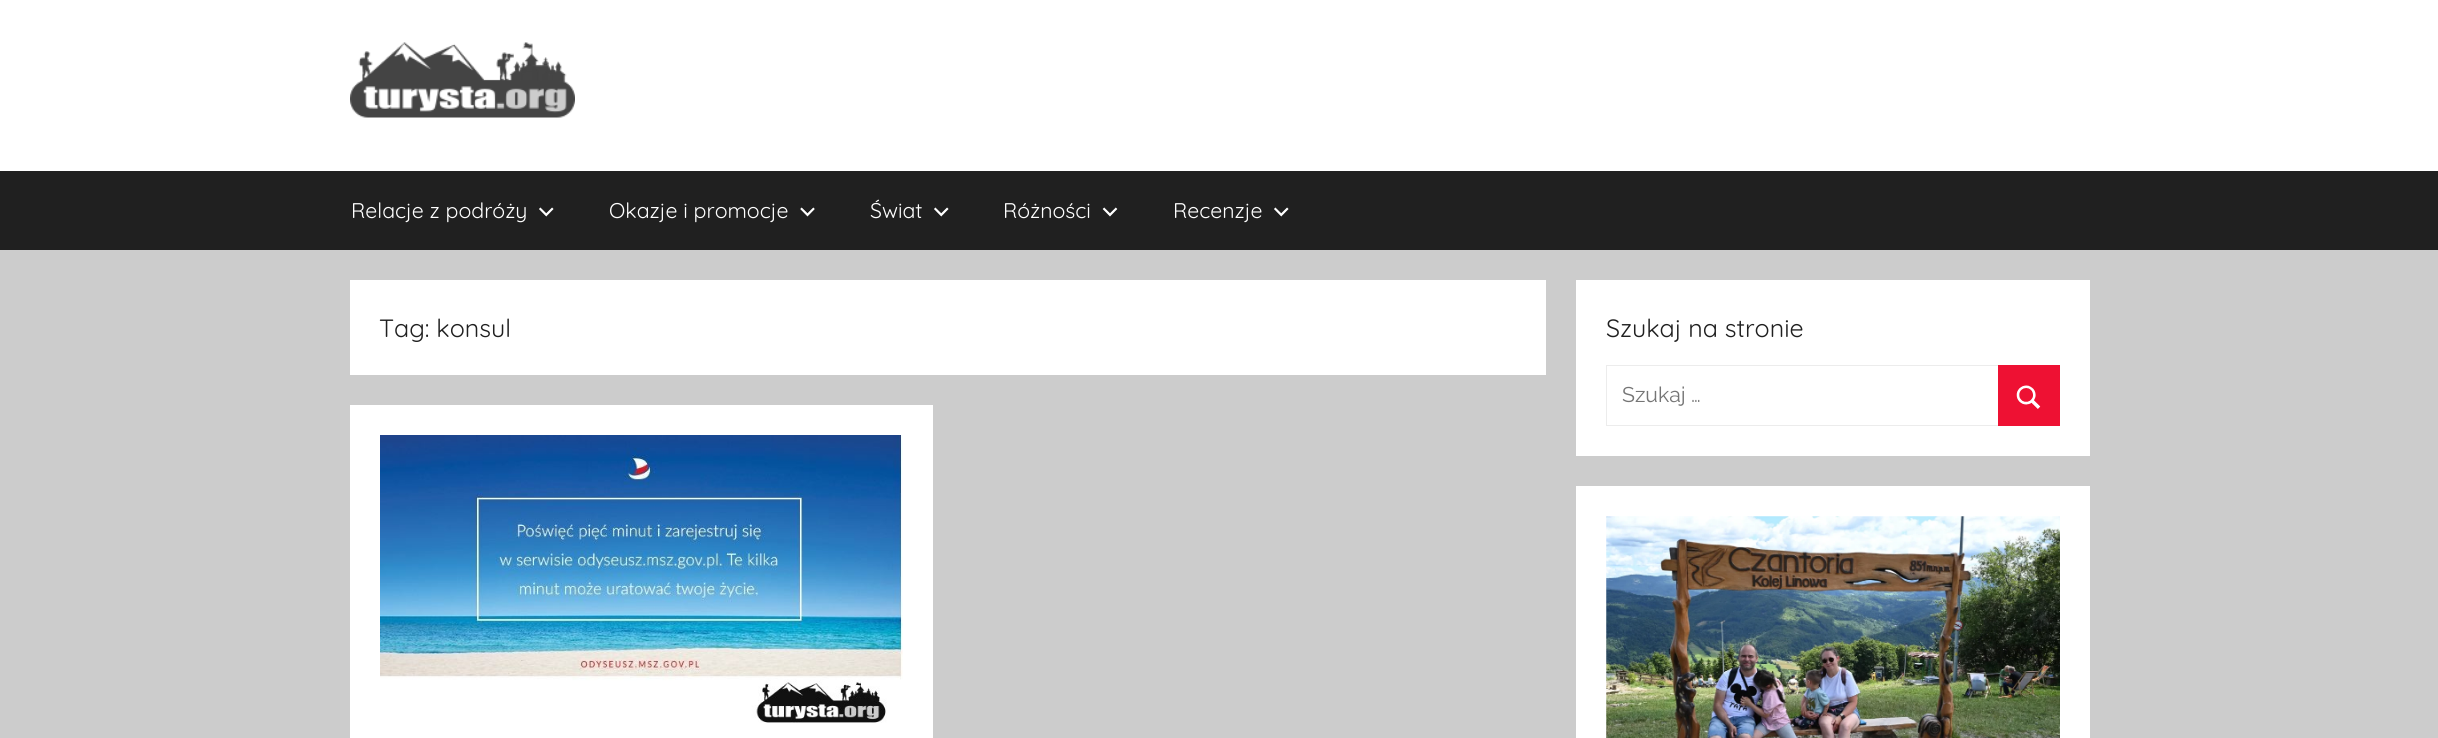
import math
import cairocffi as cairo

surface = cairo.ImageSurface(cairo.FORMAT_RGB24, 2438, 738)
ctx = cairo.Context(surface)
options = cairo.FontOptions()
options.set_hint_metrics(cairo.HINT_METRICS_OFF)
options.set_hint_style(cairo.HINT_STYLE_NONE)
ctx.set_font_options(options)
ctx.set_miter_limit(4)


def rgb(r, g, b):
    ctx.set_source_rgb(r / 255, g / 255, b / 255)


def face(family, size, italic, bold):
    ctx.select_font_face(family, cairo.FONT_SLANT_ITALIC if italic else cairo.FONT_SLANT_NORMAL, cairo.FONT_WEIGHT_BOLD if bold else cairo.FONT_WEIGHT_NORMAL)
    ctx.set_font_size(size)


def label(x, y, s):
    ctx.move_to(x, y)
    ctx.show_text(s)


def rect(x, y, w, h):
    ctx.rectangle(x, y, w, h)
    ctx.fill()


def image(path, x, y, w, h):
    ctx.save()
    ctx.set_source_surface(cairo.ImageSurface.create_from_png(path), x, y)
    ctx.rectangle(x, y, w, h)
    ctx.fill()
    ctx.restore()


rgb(204, 204, 204)
ctx.paint()
rgb(255, 255, 255)
rect(0, 0, 2438, 171)
image('image0.png', 350, 42, 225, 76)
rgb(32, 32, 32)
rect(0, 171, 2438, 79)
face('Quicksand', 21.25, 0, 0)
rgb(255, 255, 255)
label(351, 218, 'Relacje z podróży')
image('image1.png', 539, 207, 15, 10)
label(609, 218, 'Okazje i promocje')
image('image2.png', 800, 207, 15, 10)
label(870, 218, 'Świat')
image('image1.png', 934, 207, 15, 10)
label(1003, 218, 'Różności')
image('image3.png', 1102, 207, 16, 10)
label(1173, 218, 'Recenzje')
image('image1.png', 1274, 207, 15, 10)
rect(350, 280, 1196, 95)
face('Quicksand', 25, 0, 0)
rgb(32, 32, 32)
label(379, 337, 'Tag: konsul')
rgb(255, 255, 255)
rect(350, 405, 583, 333)
image('image4.png', 380, 435, 523, 288)
rect(1576, 280, 514, 176)
rgb(32, 32, 32)
label(1606, 337, 'Szukaj na stronie')
ctx.rectangle(1606.5, 365.5, 453, 60)
rgb(236, 236, 236)
ctx.set_line_width(1)
ctx.stroke()
face('Raleway', 21.25, 0, 0)
rgb(117, 117, 117)
label(1622, 402, 'Szukaj …')
rgb(238, 17, 51)
rect(1998, 365, 62, 61)
image('image5.png', 2016, 385, 25, 24)
rgb(255, 255, 255)
rect(1576, 486, 514, 252)
image('image6.png', 1606, 516, 454, 222)
surface.write_to_png('render.png')
